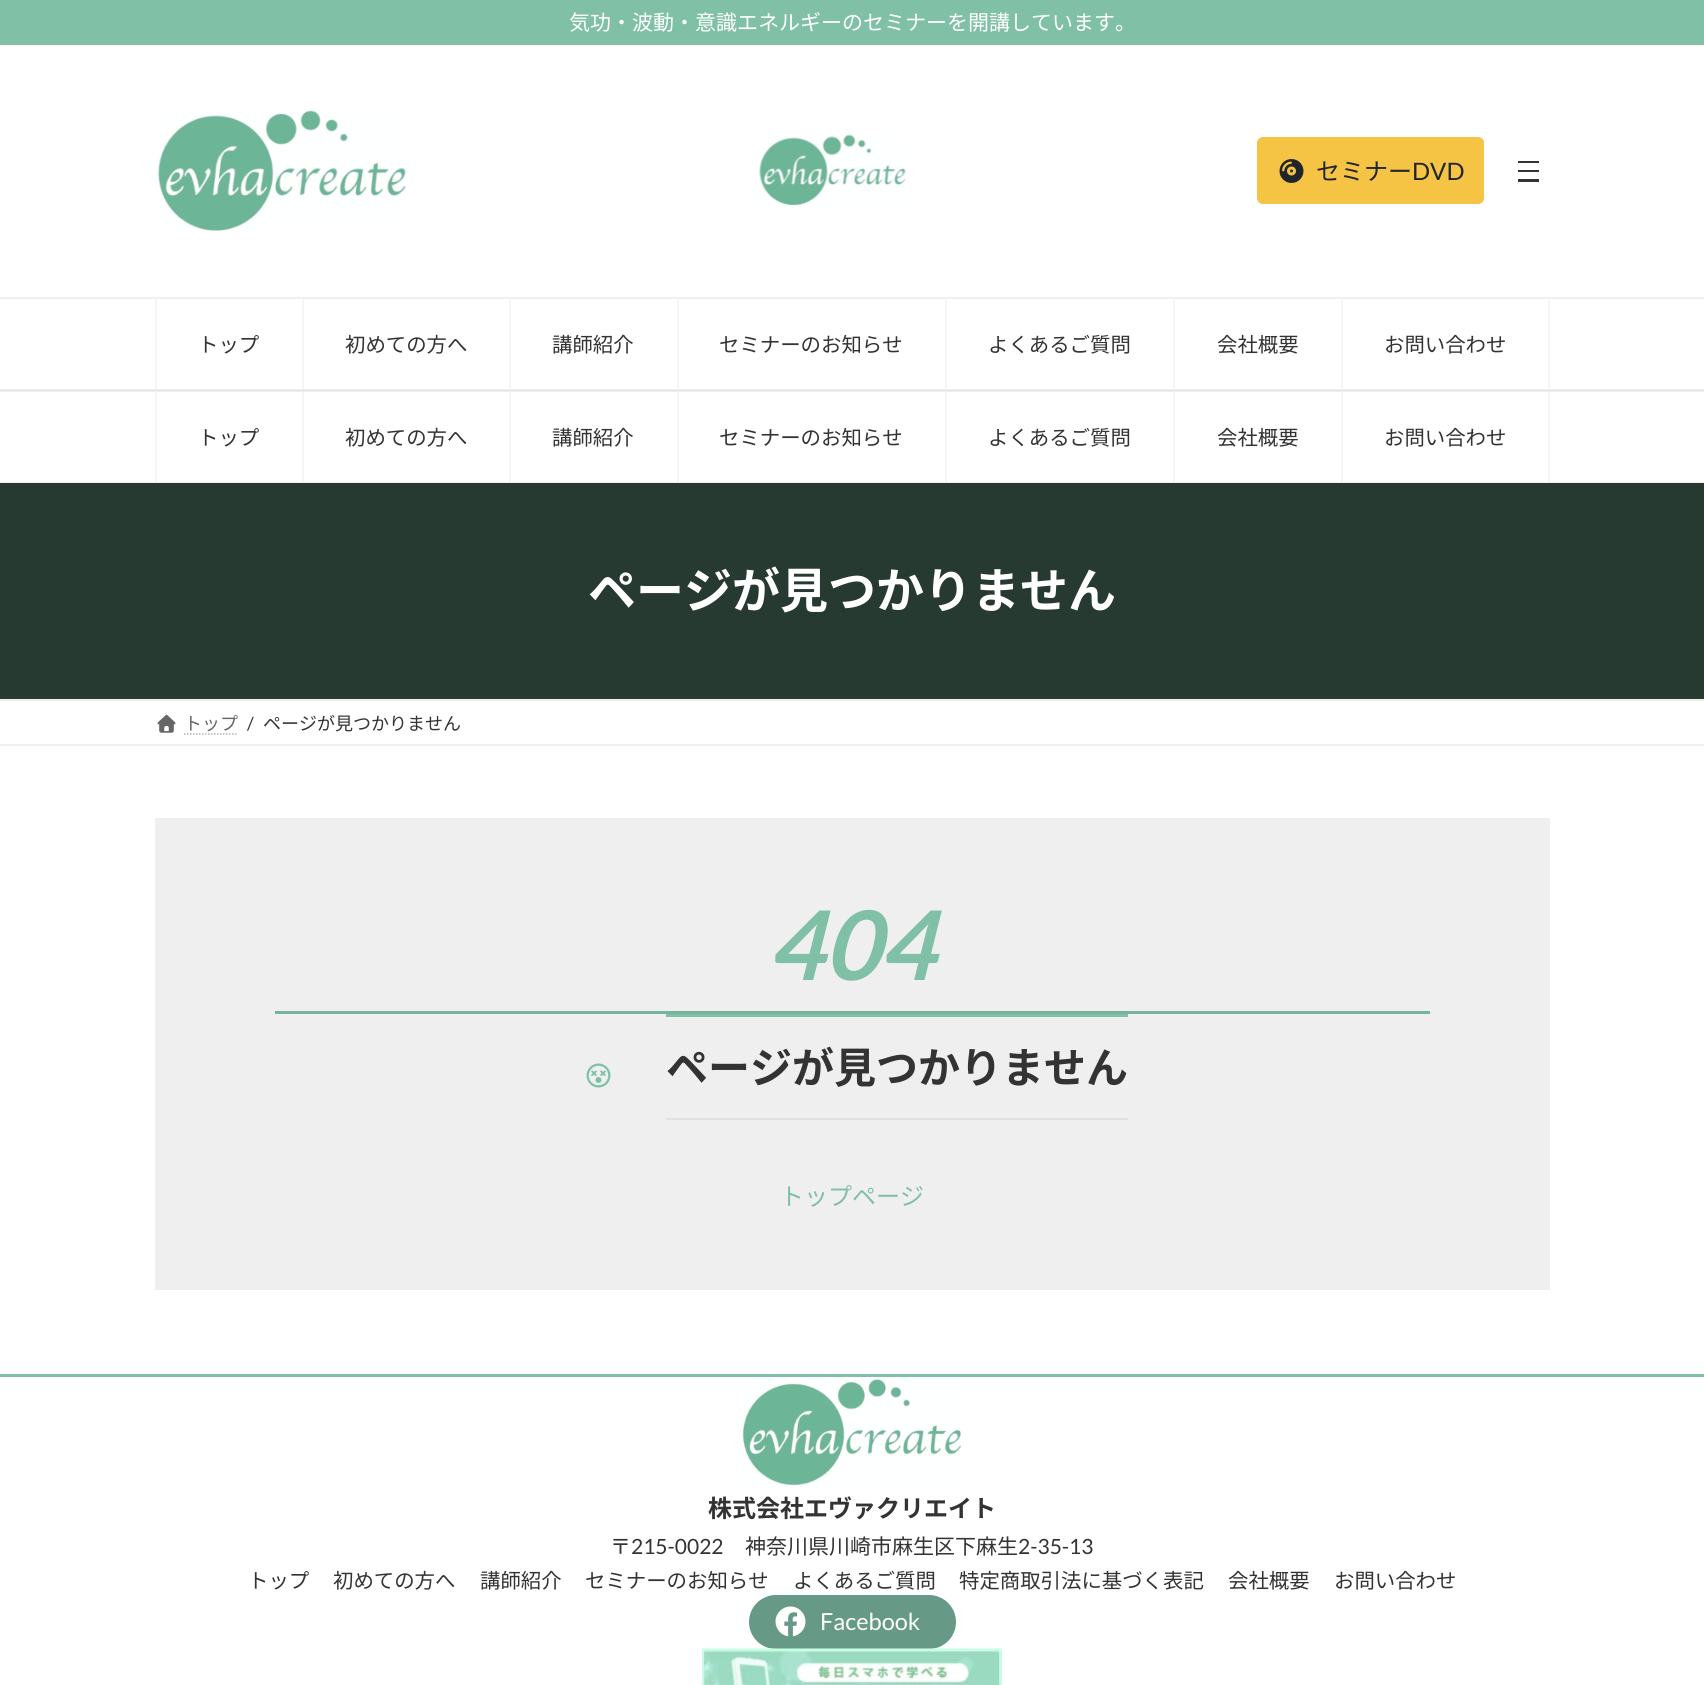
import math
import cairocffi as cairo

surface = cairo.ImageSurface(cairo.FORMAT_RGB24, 1704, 1685)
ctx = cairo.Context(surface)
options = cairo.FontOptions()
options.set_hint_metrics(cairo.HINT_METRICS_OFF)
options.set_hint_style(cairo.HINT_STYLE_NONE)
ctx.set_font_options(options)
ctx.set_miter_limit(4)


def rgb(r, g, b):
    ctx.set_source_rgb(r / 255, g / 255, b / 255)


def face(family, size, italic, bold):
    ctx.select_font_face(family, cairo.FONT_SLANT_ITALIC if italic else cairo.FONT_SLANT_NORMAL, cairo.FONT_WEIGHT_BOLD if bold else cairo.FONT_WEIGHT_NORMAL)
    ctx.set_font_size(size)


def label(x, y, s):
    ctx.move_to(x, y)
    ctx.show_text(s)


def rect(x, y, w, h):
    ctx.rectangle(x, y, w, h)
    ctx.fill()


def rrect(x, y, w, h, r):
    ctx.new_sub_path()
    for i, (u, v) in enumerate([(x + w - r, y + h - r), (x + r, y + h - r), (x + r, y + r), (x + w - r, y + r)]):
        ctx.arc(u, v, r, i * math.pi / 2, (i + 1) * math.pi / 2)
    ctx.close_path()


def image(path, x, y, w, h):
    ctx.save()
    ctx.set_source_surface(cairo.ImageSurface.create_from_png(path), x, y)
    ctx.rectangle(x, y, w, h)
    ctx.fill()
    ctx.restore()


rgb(255, 255, 255)
ctx.paint()
rgb(127, 192, 167)
rect(0, 0, 1704, 45)
face('Noto Sans JP', 21, 0, 0)
rgb(255, 255, 255)
label(569, 30, '気功・波動・意識エネルギーのセミナーを開講しています。')
image('image0.png', 158, 110, 248, 121)
image('image1.png', 759, 134, 147, 72)
rgb(246, 196, 69)
rrect(1257, 137, 227, 67, 6)
ctx.fill()
image('image2.png', 1279, 159, 25, 24)
face('Noto Sans JP', 24, 0, 0)
rgb(33, 37, 41)
label(1316, 180, 'セミナー')
face('Lato', 24, 0, 0)
label(1412, 180, 'DVD')
rgb(51, 51, 51)
rect(1518, 161, 21, 2)
rect(1518, 170, 21, 2)
rect(1518, 179, 21, 3)
rgb(240, 240, 240)
rect(0, 297, 1704, 2)
rect(0, 390, 1704, 2)
ctx.set_source_rgba(0, 0, 0, 0.06)
rect(0, 389, 1704, 2)
rgb(245, 245, 245)
rect(155, 299, 2, 90)
rect(302, 299, 2, 90)
face('Noto Sans JP', 20.4, 0, 0)
rgb(51, 51, 51)
label(198, 352, 'トップ')
rgb(245, 245, 245)
rect(509, 299, 2, 90)
rgb(51, 51, 51)
label(345, 352, '初めての方へ')
rgb(245, 245, 245)
rect(677, 299, 2, 90)
rgb(51, 51, 51)
label(552, 352, '講師紹介')
rgb(245, 245, 245)
rect(945, 299, 2, 90)
rgb(51, 51, 51)
label(719, 352, 'セミナーのお知らせ')
rgb(245, 245, 245)
rect(1173, 299, 2, 90)
rgb(51, 51, 51)
label(988, 352, 'よくあるご質問')
rgb(245, 245, 245)
rect(1341, 299, 2, 90)
rgb(51, 51, 51)
label(1217, 352, '会社概要')
rgb(245, 245, 245)
rect(1548, 299, 2, 90)
rgb(51, 51, 51)
label(1384, 352, 'お問い合わせ')
rgb(240, 240, 240)
rect(0, 482, 1704, 1)
rgb(245, 245, 245)
rect(155, 392, 2, 90)
rect(302, 392, 2, 90)
rgb(51, 51, 51)
label(198, 445, 'トップ')
rgb(245, 245, 245)
rect(509, 392, 2, 90)
rgb(51, 51, 51)
label(345, 445, '初めての方へ')
rgb(245, 245, 245)
rect(677, 392, 2, 90)
rgb(51, 51, 51)
label(552, 445, '講師紹介')
rgb(245, 245, 245)
rect(945, 392, 2, 90)
rgb(51, 51, 51)
label(719, 445, 'セミナーのお知らせ')
rgb(245, 245, 245)
rect(1173, 392, 2, 90)
rgb(51, 51, 51)
label(988, 445, 'よくあるご質問')
rgb(245, 245, 245)
rect(1341, 392, 2, 90)
rgb(51, 51, 51)
label(1217, 445, '会社概要')
rgb(245, 245, 245)
rect(1548, 392, 2, 90)
rgb(51, 51, 51)
label(1384, 445, 'お問い合わせ')
rgb(38, 58, 50)
rect(0, 483, 1704, 216)
face('Noto Sans JP', 48, 0, 1)
rgb(255, 255, 255)
label(588, 608, 'ページが見つかりません')
rgb(240, 240, 240)
rect(0, 699, 1704, 2)
rect(0, 744, 1704, 2)
image('image3.png', 157, 714, 19, 19)
face('Noto Sans JP', 18, 0, 0)
rgb(102, 102, 102)
label(184, 730, 'トップ')
ctx.new_path()
ctx.move_to(184, 734)
ctx.line_to(238, 734)
rgb(179, 179, 179)
ctx.set_line_width(1.5)
ctx.set_dash([1.5, 1.5])
ctx.stroke()
face('Lato', 18, 0, 0)
rgb(51, 51, 51)
label(247, 730, '/')
face('Noto Sans JP', 18, 0, 0)
label(263, 730, 'ページが見つかりません')
rgb(239, 239, 239)
rect(155, 818, 1395, 472)
face('Lato', 96, 1, 1)
rgb(127, 192, 167)
label(768, 980, '404')
rgb(119, 180, 157)
rect(275, 1011, 1155, 3)
image('image4.png', 586, 1063, 25, 25)
rgb(127, 192, 167)
rect(666, 1014, 462, 3)
rgb(225, 225, 225)
rect(666, 1118, 462, 2)
face('Noto Sans JP', 42, 0, 1)
rgb(51, 51, 51)
label(666, 1083, 'ページが見つかりません')
face('Noto Sans JP', 24, 0, 0)
rgb(127, 192, 167)
label(780, 1205, 'トップページ')
rect(0, 1374, 1704, 3)
image('image5.png', 742, 1379, 219, 107)
face('Noto Sans JP', 24, 0, 1)
rgb(51, 51, 51)
label(708, 1517, '株式会社エヴァクリエイト')
face('Noto Sans JP', 21, 0, 0)
label(610, 1554, '〒')
face('Lato', 21, 0, 0)
label(631, 1554, '215-0022')
face('Noto Sans JP', 21, 0, 0)
label(745, 1554, '神奈川県川崎市麻生区下麻生')
face('Lato', 21, 0, 0)
label(1018, 1554, '2-35-13')
face('Noto Sans JP', 20.4, 0, 0)
label(248, 1588, 'トップ')
label(333, 1588, '初めての方へ')
label(480, 1588, '講師紹介')
label(585, 1588, 'セミナーのお知らせ')
label(793, 1588, 'よくあるご質問')
label(959, 1588, '特定商取引法に基づく表記')
label(1228, 1588, '会社概要')
label(1334, 1588, 'お問い合わせ')
rgb(102, 154, 134)
rrect(749, 1595, 207, 54, 27)
ctx.fill()
image('image6.png', 775, 1606, 31, 31)
face('Lato', 23.5, 0, 0)
rgb(255, 255, 255)
label(820, 1630, 'Facebook')
image('image7.png', 702, 1648, 300, 37)
surface.write_to_png('render.png')
